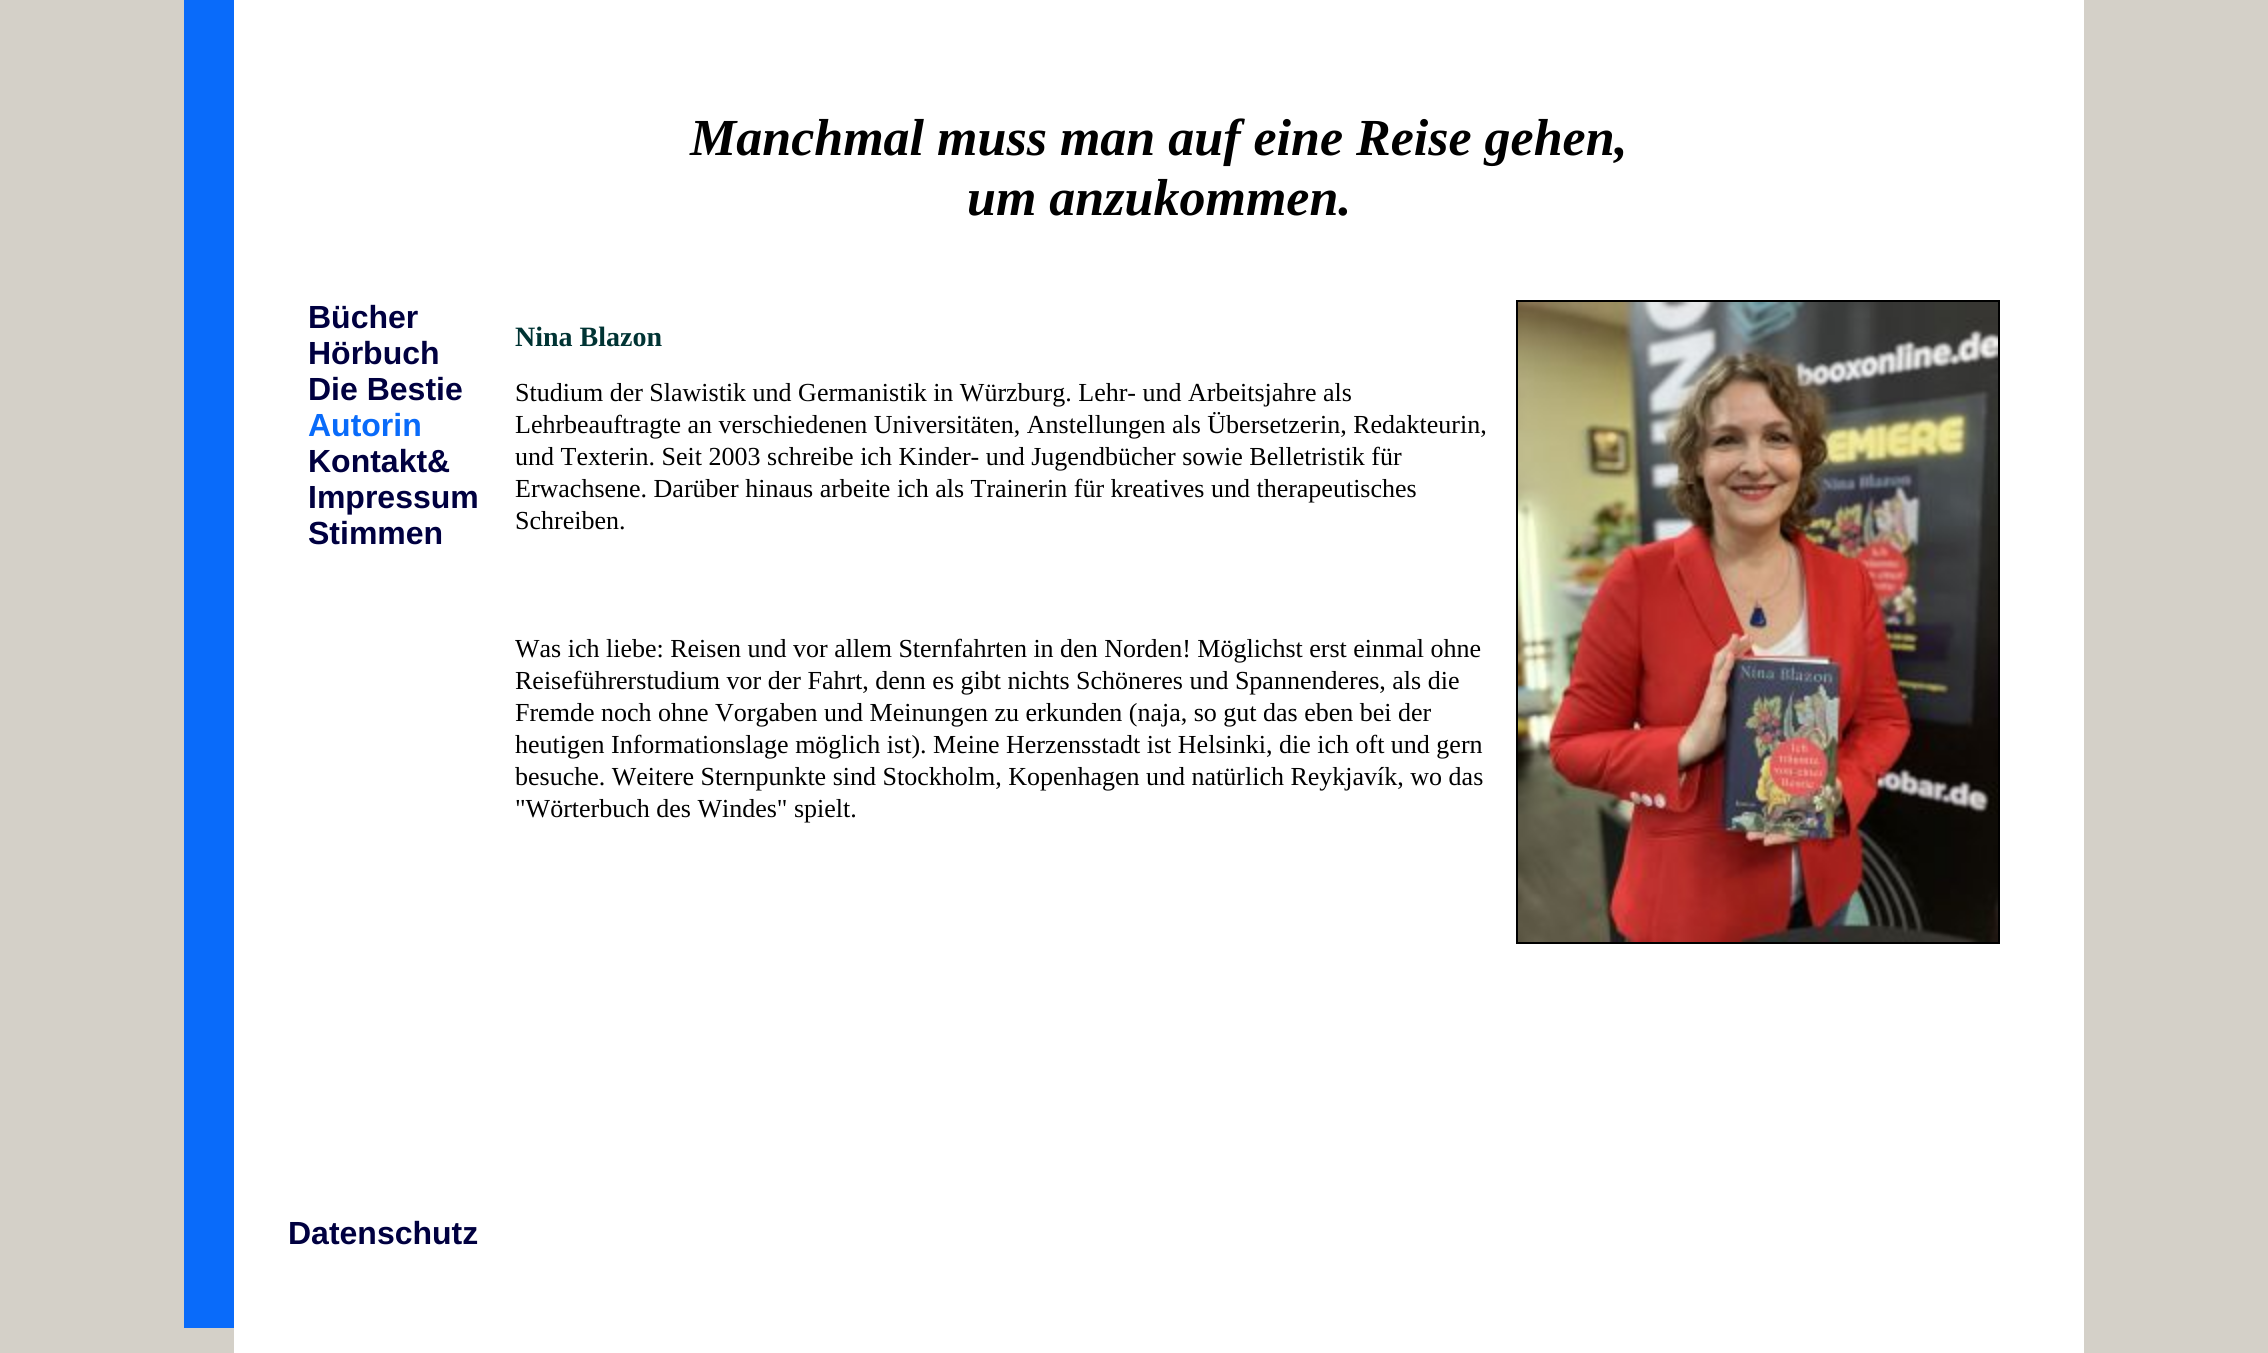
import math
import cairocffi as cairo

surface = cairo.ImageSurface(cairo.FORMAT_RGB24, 2268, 1353)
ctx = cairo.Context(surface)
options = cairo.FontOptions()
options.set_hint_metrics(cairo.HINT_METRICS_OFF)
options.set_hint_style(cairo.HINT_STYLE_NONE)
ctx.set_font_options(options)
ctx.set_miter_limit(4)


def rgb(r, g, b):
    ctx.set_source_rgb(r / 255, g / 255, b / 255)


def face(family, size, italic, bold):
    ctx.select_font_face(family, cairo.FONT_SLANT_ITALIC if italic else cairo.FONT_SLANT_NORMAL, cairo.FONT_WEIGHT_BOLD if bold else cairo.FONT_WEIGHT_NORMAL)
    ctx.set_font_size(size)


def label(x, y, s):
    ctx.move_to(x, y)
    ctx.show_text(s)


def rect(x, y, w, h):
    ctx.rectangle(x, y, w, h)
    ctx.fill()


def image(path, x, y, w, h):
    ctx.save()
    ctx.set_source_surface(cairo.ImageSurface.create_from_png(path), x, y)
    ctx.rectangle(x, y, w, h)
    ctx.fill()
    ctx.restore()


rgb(212, 208, 200)
ctx.paint()
rgb(9, 107, 250)
rect(184, 0, 50, 1328)
rgb(255, 255, 255)
rect(234, 0, 1850, 50)
rect(234, 50, 1850, 1303)
face('Liberation Serif', 52, 1, 1)
rgb(0, 0, 0)
label(690, 155, 'Manchmal muss man auf eine Reise gehen,')
label(967, 215, 'um anzukommen.')
face('Liberation Sans', 32, 0, 1)
rgb(0, 0, 64)
label(308, 328, 'Bücher')
label(308, 364, 'Hörbuch')
label(308, 400, 'Die Bestie')
rgb(9, 107, 250)
label(308, 436, 'Autorin')
rgb(0, 0, 64)
label(308, 472, 'Kontakt&')
label(308, 508, 'Impressum')
label(308, 544, 'Stimmen')
face('Liberation Serif', 28, 0, 1)
rgb(0, 51, 51)
label(515, 346, 'Nina Blazon')
ctx.rectangle(1517, 301, 482, 642)
rgb(0, 0, 0)
ctx.stroke()
image('image0.png', 1518, 302, 480, 640)
face('Liberation Serif', 26, 0, 0)
label(515, 401, 'Studium der Slawistik und Germanistik in Würzburg. Lehr- und Arbeitsjahre als')
label(515, 433, 'Lehrbeauftragte an verschiedenen Universitäten, Anstellungen als Übersetzerin, Redakteurin,')
label(515, 465, 'und Texterin. Seit 2003 schreibe ich Kinder- und Jugendbücher sowie Belletristik für')
label(515, 497, 'Erwachsene. Darüber hinaus arbeite ich als Trainerin für kreatives und therapeutisches')
label(515, 529, 'Schreiben.')
label(515, 657, 'Was ich liebe: Reisen und vor allem Sternfahrten in den Norden! Möglichst erst einmal ohne')
label(515, 689, 'Reiseführerstudium vor der Fahrt, denn es gibt nichts Schöneres und Spannenderes, als die')
label(515, 721, 'Fremde noch ohne Vorgaben und Meinungen zu erkunden (naja, so gut das eben bei der')
label(515, 753, 'heutigen Informationslage möglich ist). Meine Herzensstadt ist Helsinki, die ich oft und gern')
label(515, 785, 'besuche. Weitere Sternpunkte sind Stockholm, Kopenhagen und natürlich Reykjavík, wo das')
label(515, 817, '"Wörterbuch des Windes" spielt.')
face('Liberation Sans', 32, 0, 1)
rgb(0, 0, 64)
label(288, 1244, 'Datenschutz')
surface.write_to_png('render.png')
